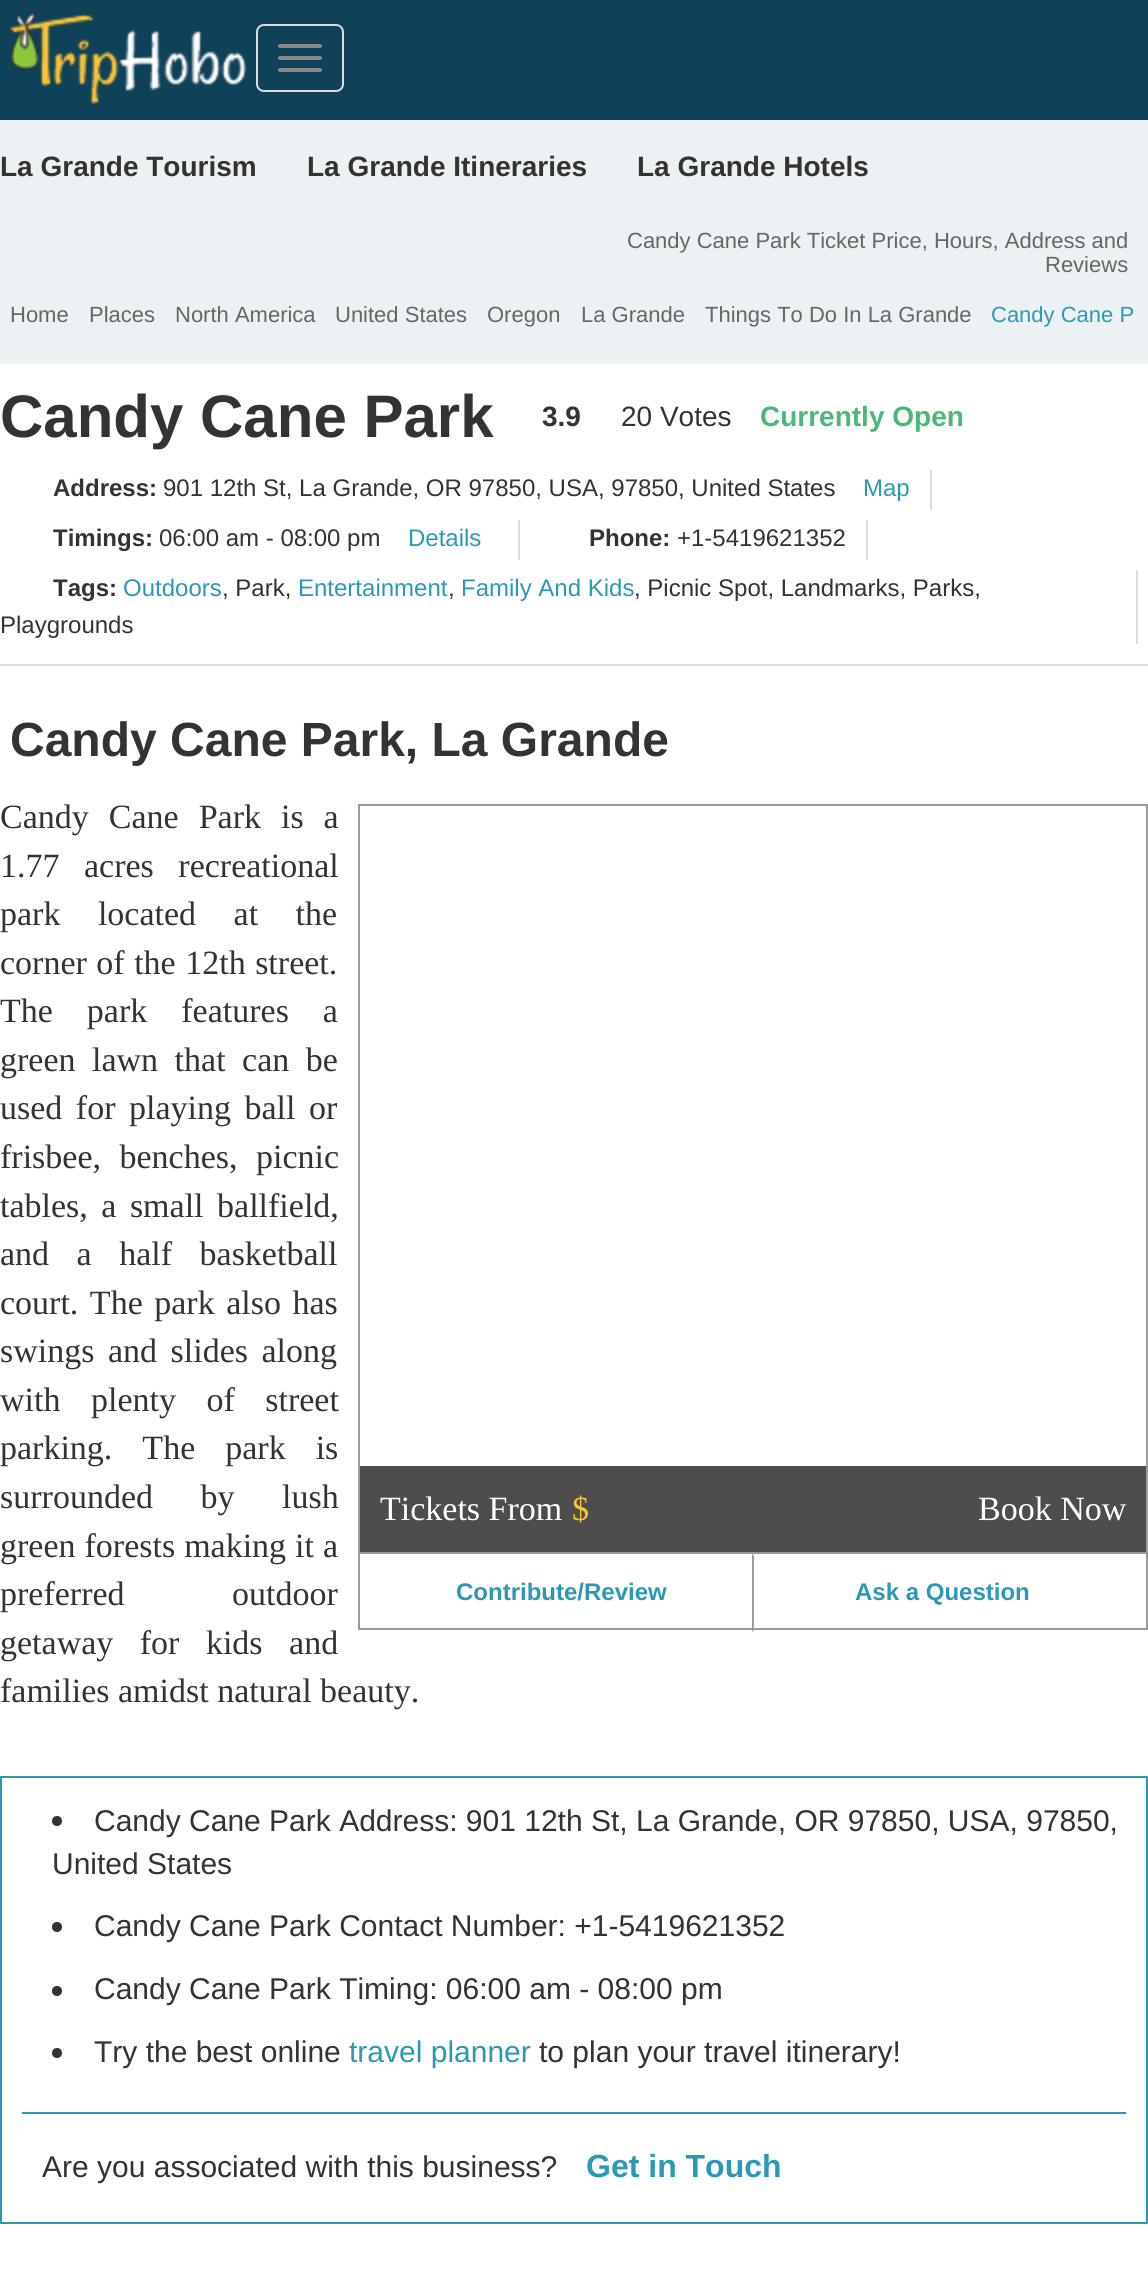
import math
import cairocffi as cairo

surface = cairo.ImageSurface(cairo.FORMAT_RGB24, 1148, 2274)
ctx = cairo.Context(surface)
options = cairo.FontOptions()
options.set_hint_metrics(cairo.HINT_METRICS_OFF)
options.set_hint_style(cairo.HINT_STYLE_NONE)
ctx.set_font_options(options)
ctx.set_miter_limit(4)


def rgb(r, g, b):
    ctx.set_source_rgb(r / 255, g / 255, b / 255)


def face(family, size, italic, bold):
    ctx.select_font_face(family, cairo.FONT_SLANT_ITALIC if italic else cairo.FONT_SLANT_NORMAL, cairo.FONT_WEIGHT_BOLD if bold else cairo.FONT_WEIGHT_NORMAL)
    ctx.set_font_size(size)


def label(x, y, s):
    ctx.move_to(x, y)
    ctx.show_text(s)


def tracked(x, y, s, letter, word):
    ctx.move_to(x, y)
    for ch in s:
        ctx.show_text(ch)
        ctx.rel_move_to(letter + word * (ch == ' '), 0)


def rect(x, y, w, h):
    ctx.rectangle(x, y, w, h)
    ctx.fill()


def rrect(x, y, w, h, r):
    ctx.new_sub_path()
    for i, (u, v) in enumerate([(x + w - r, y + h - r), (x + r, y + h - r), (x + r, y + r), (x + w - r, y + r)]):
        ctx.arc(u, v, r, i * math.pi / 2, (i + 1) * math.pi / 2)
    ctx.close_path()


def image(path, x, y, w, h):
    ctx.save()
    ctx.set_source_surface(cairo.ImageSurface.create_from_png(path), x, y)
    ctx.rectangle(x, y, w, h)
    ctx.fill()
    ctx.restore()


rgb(255, 255, 255)
ctx.paint()
rgb(15, 65, 89)
rect(0, 0, 1148, 120)
image('image0.png', 10, 12, 236, 92)
rrect(257, 25, 86, 66, 7)
rgb(221, 221, 221)
ctx.stroke()
rgb(136, 136, 136)
rrect(278, 44, 44, 4, 2)
ctx.fill()
rrect(278, 56, 44, 4, 2)
ctx.fill()
rrect(278, 68, 44, 4, 2)
ctx.fill()
rgb(236, 241, 244)
rect(0, 120, 1148, 244)
face('Liberation Sans', 28, 0, 1)
rgb(51, 51, 51)
label(0, 176, 'La Grande Tourism')
label(307, 176, 'La Grande Itineraries')
label(637, 176, 'La Grande Hotels')
face('Liberation Sans', 22, 0, 0)
rgb(102, 102, 102)
label(627, 248, 'Candy Cane Park Ticket Price, Hours, Address and')
label(1045, 272, 'Reviews')
label(10, 322, 'Home')
label(89, 322, 'Places')
label(175, 322, 'North America')
label(335, 322, 'United States')
label(487, 322, 'Oregon')
label(581, 322, 'La Grande')
label(705, 322, 'Things To Do In La Grande')
rgb(43, 153, 182)
label(991, 322, 'Candy Cane P')
face('Liberation Sans', 60, 0, 1)
rgb(51, 51, 51)
label(0, 437, 'Candy Cane Park')
face('Liberation Sans', 28, 0, 1)
label(542, 426, '3.9')
face('Liberation Sans', 28, 0, 0)
label(621, 426, '20 Votes')
face('Liberation Sans', 28, 0, 1)
rgb(74, 184, 121)
label(760, 426, 'Currently Open')
rgb(221, 221, 221)
rect(0, 664, 1148, 2)
rect(930, 470, 2, 40)
face('Liberation Sans', 24, 0, 1)
rgb(51, 51, 51)
label(53, 496, 'Address:')
face('Liberation Sans', 24, 0, 0)
label(163, 496, '901 12th St, La Grande, OR 97850, USA, 97850, United States')
rgb(43, 153, 182)
label(863, 496, 'Map')
rgb(221, 221, 221)
rect(518, 520, 2, 40)
face('Liberation Sans', 24, 0, 1)
rgb(51, 51, 51)
label(53, 546, 'Timings:')
face('Liberation Sans', 24, 0, 0)
label(159, 546, '06:00 am - 08:00 pm')
rgb(43, 153, 182)
label(408, 546, 'Details')
rgb(221, 221, 221)
rect(866, 520, 2, 40)
face('Liberation Sans', 24, 0, 1)
rgb(51, 51, 51)
label(589, 546, 'Phone:')
face('Liberation Sans', 24, 0, 0)
label(677, 546, '+1-5419621352')
rgb(221, 221, 221)
rect(1136, 570, 2, 74)
face('Liberation Sans', 24, 0, 1)
rgb(51, 51, 51)
label(53, 596, 'Tags:')
face('Liberation Sans', 24, 0, 0)
rgb(43, 153, 182)
label(123, 596, 'Outdoors')
rgb(51, 51, 51)
label(222, 596, ', Park,')
rgb(43, 153, 182)
label(298, 596, 'Entertainment')
rgb(51, 51, 51)
label(448, 596, ',')
rgb(43, 153, 182)
label(461, 596, 'Family And Kids')
rgb(51, 51, 51)
label(634, 596, ', Picnic Spot, Landmarks, Parks,')
label(0, 633, 'Playgrounds')
face('Liberation Sans', 48, 0, 1)
label(10, 756, 'Candy Cane Park, La Grande')
face('Liberation Serif', 34, 0, 0)
tracked(0, 828, 'Candy Cane Park is a', 0, 11.5)
tracked(0, 877, '1.77 acres recreational', 0, 16)
tracked(0, 925, 'park located at the', 0, 29)
tracked(0, 974, 'corner of the 12th street.', 0, 1)
tracked(0, 1022, 'The park features a', 0, 25.5)
tracked(0, 1071, 'green lawn that can be', 0, 8)
tracked(0, 1119, 'used for playing ball or', 0, 5)
tracked(0, 1168, 'frisbee, benches, picnic', 0, 10)
tracked(0, 1217, 'tables, a small ballfield,', 0, 5)
tracked(0, 1265, 'and a half basketball', 0, 19)
tracked(0, 1314, 'court. The park also has', 0, 3)
tracked(0, 1362, 'swings and slides along', 0, 5)
tracked(0, 1411, 'with plenty of street', 0, 22)
tracked(0, 1459, 'parking. The park is', 0, 21.5)
tracked(0, 1508, 'surrounded by lush', 0, 39)
tracked(0, 1557, 'green forests making it a', 0, 0.5)
tracked(0, 1605, 'preferred outdoor', 0, 99)
tracked(0, 1654, 'getaway for kids and', 0, 18)
label(0, 1702, 'families amidst natural beauty.')
ctx.rectangle(359, 805, 788, 824)
rgb(153, 153, 153)
ctx.stroke()
rgb(77, 77, 77)
rect(360, 1466, 786, 86)
rgb(255, 255, 255)
label(380, 1520, 'Tickets From')
rgb(250, 195, 53)
label(572, 1520, '$')
rgb(255, 255, 255)
label(978, 1520, 'Book Now')
rgb(153, 153, 153)
rect(360, 1552, 786, 2)
face('Liberation Sans', 24, 0, 1)
rgb(43, 153, 182)
label(456, 1600, 'Contribute/Review')
rgb(153, 153, 153)
ctx.new_path()
ctx.move_to(752, 1632)
ctx.line_to(752, 1554)
ctx.line_to(754, 1556)
ctx.line_to(754, 1630)
ctx.close_path()
ctx.fill()
rgb(43, 153, 182)
label(855, 1600, 'Ask a Question')
ctx.rectangle(1, 1777, 1146, 446)
ctx.stroke()
rgb(51, 51, 51)
ctx.arc(57, 1821, 5, 0, 2 * math.pi)
ctx.fill()
face('Liberation Sans', 30, 0, 0)
label(94, 1831, 'Candy Cane Park Address: 901 12th St, La Grande, OR 97850, USA, 97850,')
label(52, 1874, 'United States')
ctx.new_path()
ctx.arc(57, 1927, 5, 0, 2 * math.pi)
ctx.fill()
label(94, 1936, 'Candy Cane Park Contact Number: +1-5419621352')
ctx.new_path()
ctx.arc(57, 1991, 5, 0, 2 * math.pi)
ctx.fill()
label(94, 1999, 'Candy Cane Park Timing: 06:00 am - 08:00 pm')
ctx.new_path()
ctx.arc(57, 2053, 5, 0, 2 * math.pi)
ctx.fill()
label(94, 2062, 'Try the best online')
rgb(43, 153, 182)
label(349, 2062, 'travel planner')
rgb(51, 51, 51)
label(539, 2062, 'to plan your travel itinerary!')
rgb(43, 153, 182)
rect(22, 2112, 1104, 2)
rgb(51, 51, 51)
label(42, 2177, 'Are you associated with this business?')
face('Liberation Sans', 32, 0, 1)
rgb(43, 153, 182)
label(586, 2177, 'Get in Touch')
surface.write_to_png('render.png')
